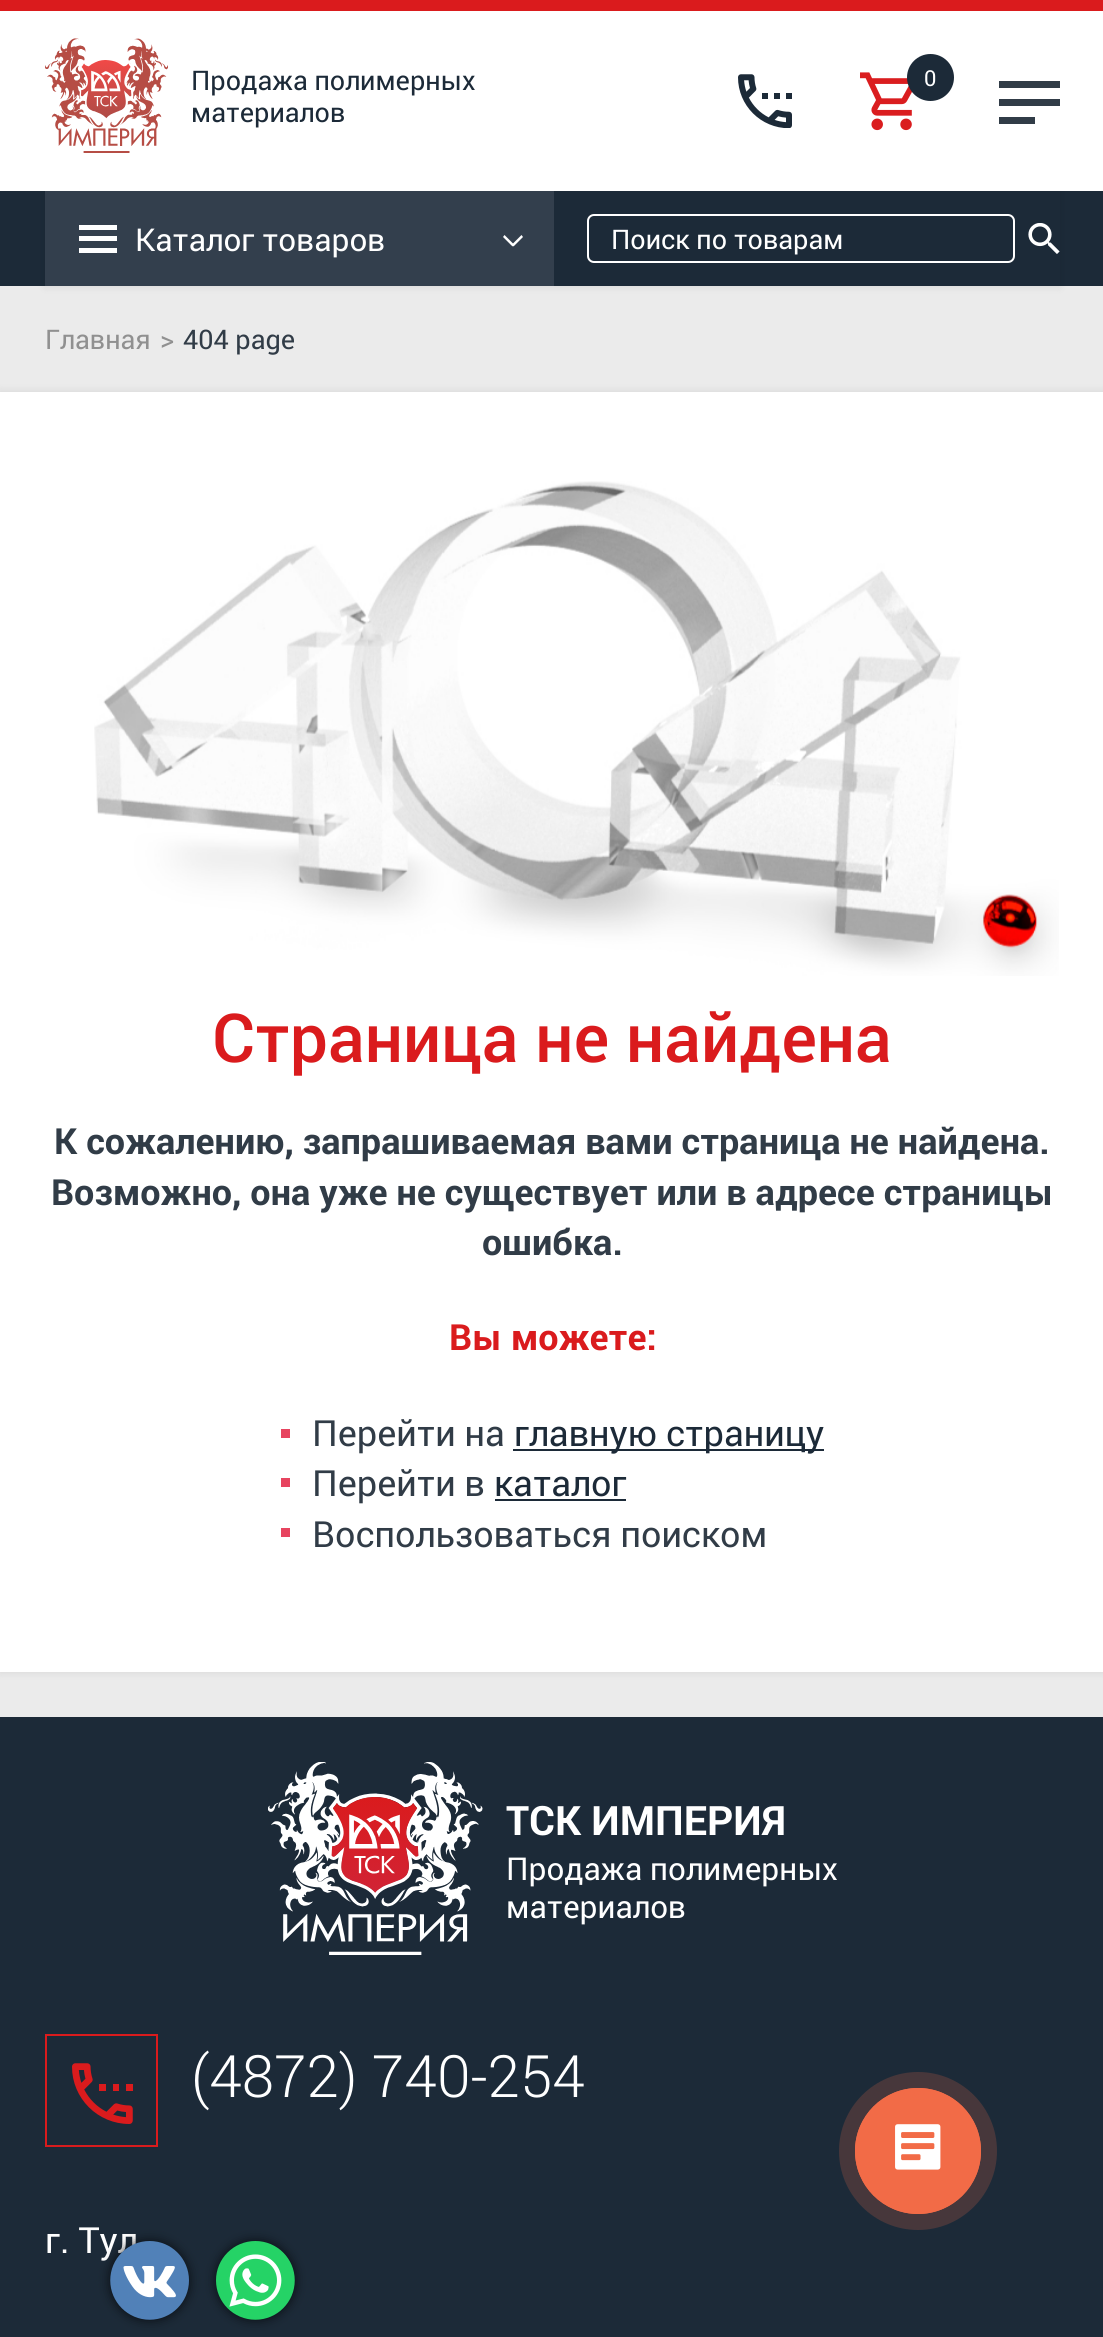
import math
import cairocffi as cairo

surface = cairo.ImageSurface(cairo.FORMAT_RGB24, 1103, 2337)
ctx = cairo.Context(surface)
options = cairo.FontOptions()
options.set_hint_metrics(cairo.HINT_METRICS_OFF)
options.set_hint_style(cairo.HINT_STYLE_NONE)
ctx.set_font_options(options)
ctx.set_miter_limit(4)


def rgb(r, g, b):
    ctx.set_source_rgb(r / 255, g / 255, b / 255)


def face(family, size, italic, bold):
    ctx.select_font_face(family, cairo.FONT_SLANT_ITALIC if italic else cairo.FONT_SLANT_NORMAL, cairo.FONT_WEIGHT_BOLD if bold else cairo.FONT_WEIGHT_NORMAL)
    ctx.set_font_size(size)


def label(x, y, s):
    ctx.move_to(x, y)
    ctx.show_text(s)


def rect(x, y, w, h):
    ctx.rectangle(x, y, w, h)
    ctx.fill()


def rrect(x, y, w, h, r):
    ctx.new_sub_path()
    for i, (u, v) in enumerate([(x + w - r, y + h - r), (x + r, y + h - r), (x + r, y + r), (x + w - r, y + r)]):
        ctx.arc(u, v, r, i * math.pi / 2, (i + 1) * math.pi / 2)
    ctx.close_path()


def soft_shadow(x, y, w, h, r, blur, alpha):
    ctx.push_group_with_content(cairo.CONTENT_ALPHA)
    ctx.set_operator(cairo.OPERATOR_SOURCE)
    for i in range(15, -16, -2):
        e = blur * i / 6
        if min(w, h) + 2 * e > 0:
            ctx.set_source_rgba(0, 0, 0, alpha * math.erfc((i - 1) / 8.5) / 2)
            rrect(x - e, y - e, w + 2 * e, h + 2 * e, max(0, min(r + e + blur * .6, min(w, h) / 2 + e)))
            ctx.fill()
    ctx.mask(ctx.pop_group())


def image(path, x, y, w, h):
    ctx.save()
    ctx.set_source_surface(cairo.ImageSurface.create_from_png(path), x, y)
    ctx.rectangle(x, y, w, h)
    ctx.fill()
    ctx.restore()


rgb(235, 235, 235)
ctx.paint()
rgb(28, 42, 56)
rect(0, 191, 1103, 95)
rgb(0, 0, 0)
soft_shadow(45, -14, 1015, 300, 0, 4.5, 0.1)
rgb(218, 27, 29)
rect(0, 0, 1103, 11)
rgb(255, 255, 255)
rect(0, 11, 1103, 180)
image('image0.png', 45, 38, 123, 115)
face('Roboto', 27, 0, 0)
rgb(28, 42, 56)
label(191, 90, 'Продажа полимерных')
label(191, 122, 'материалов')
image('image1.png', 738, 74, 54, 54)
image('image2.png', 860, 72, 52, 59)
ctx.arc(930.5, 77.5, 23.5, 0, 2 * math.pi)
ctx.fill()
face('Roboto', 22, 0, 0)
rgb(255, 255, 255)
label(924, 86, '0')
rgb(49, 60, 71)
rect(999, 99, 61, 7)
rect(999, 81, 61, 7)
rect(999, 117, 36, 7)
rgb(51, 63, 77)
rect(45, 191, 509, 95)
rgb(255, 255, 255)
rect(79, 236, 38, 5)
rect(79, 225, 38, 5)
rect(79, 248, 38, 5)
face('Roboto', 31.5, 0, 0)
label(135, 251, 'Каталог товаров')
ctx.new_path()
ctx.move_to(503, 237)
ctx.line_to(504.5, 235)
ctx.line_to(514, 244.5)
ctx.line_to(512.5, 246.5)
ctx.close_path()
ctx.fill()
ctx.new_path()
ctx.move_to(521.5, 235)
ctx.line_to(523, 237)
ctx.line_to(513.5, 246.5)
ctx.line_to(512, 244.5)
ctx.close_path()
ctx.fill()
rgb(28, 42, 56)
rect(554, 191, 506, 95)
rrect(588, 215, 426, 47, 6)
rgb(255, 255, 255)
ctx.stroke()
face('Roboto', 27, 0, 0)
label(611, 249, 'Поиск по товарам')
image('image3.png', 1028, 223, 32, 31)
rgb(144, 144, 144)
label(45, 349, 'Главная')
label(160, 349, '>')
rgb(49, 60, 71)
label(183, 349, '404 page')
rgb(0, 0, 0)
soft_shadow(0, 392, 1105, 1280, 0, 4.5, 0.1)
rgb(255, 255, 255)
rect(0, 392, 1103, 1280)
image('image4.png', 94, 481, 965, 495)
face('Roboto Medium', 67.5, 0, 0)
rgb(218, 27, 29)
label(212, 1062, 'Страница не найдена')
face('Roboto', 36, 0, 1)
rgb(49, 60, 71)
label(54, 1154, 'К сожалению, запрашиваемая вами страница не найдена.')
label(51, 1205, 'Возможно, она уже не существует или в адресе страницы')
label(482, 1255, 'ошибка.')
rgb(218, 27, 29)
label(449, 1350, 'Вы можете:')
rgb(231, 68, 95)
rect(281, 1429, 9, 9)
face('Roboto', 36, 0, 0)
rgb(49, 60, 71)
label(312, 1446, 'Перейти на')
rgb(28, 42, 56)
rect(513, 1449, 311, 2)
label(514, 1446, 'главную страницу')
rgb(231, 68, 95)
rect(281, 1478, 9, 9)
rgb(49, 60, 71)
label(312, 1496, 'Перейти в')
rgb(28, 42, 56)
label(494, 1496, 'каталог')
rect(495, 1499, 131, 2)
rgb(231, 68, 95)
rect(281, 1528, 9, 9)
rgb(49, 60, 71)
label(312, 1547, 'Воспользоваться поиском')
rgb(28, 42, 56)
rect(0, 1717, 1103, 620)
image('image5.png', 268, 1762, 215, 193)
face('Roboto', 40.5, 0, 1)
rgb(255, 255, 255)
label(506, 1835, 'ТСК ИМПЕРИЯ')
face('Roboto', 31.5, 0, 0)
label(506, 1880, 'Продажа полимерных')
label(506, 1918, 'материалов')
ctx.rectangle(46, 2035, 111, 111)
rgb(218, 27, 29)
ctx.stroke()
image('image6.png', 72, 2063, 61, 61)
face('Roboto Light', 58.5, 0, 0)
rgb(255, 255, 255)
label(191, 2097, '(4872) 740-254')
face('Roboto', 36, 0, 0)
label(45, 2253, 'г. Тул')
rgb(0, 0, 0)
soft_shadow(110, 2241, 79, 79, 39.5, 5.5, 0.7)
image('image7.png', 110, 2241, 79, 79)
soft_shadow(216, 2241, 79, 79, 39.5, 5.5, 0.7)
image('image8.png', 216, 2241, 79, 79)
rgb(71, 55, 59)
ctx.arc(918, 2151, 79, 0, 2 * math.pi)
ctx.fill()
ctx.arc(918, 2151, 62, 0, 2 * math.pi)
rgb(242, 107, 71)
ctx.stroke()
ctx.arc(918, 2151, 63, 0, 2 * math.pi)
ctx.fill()
image('image9.png', 895, 2124, 46, 46)
surface.write_to_png('render.png')
